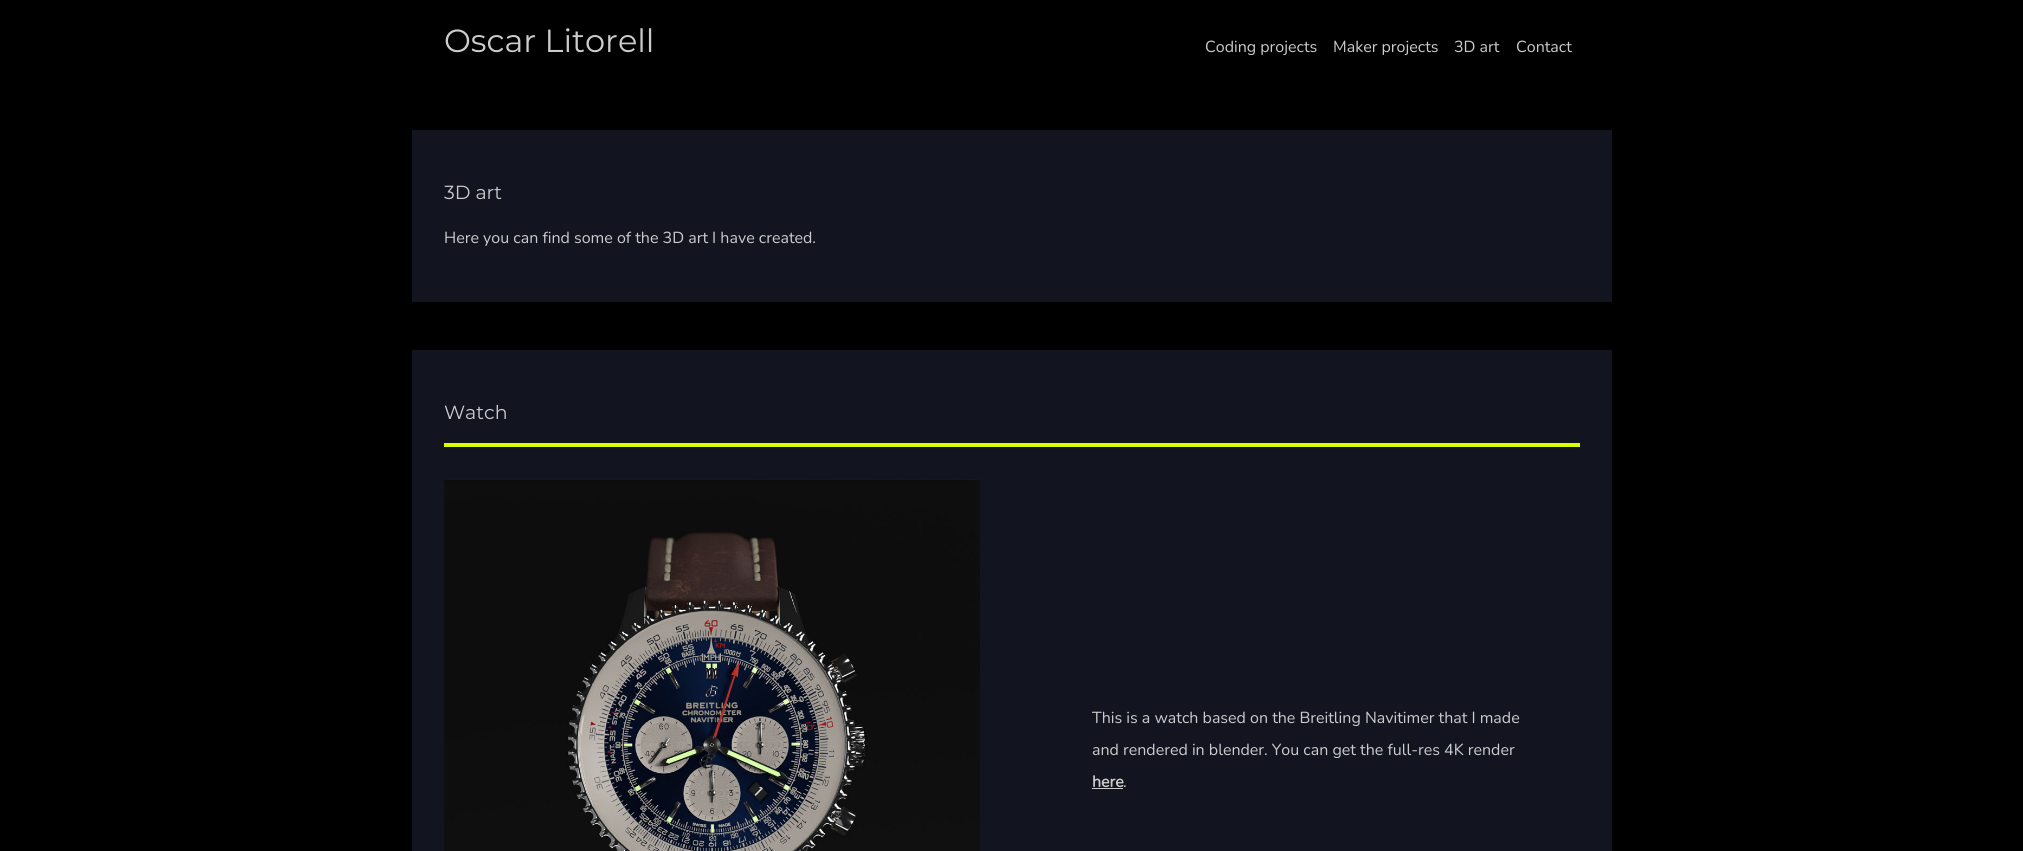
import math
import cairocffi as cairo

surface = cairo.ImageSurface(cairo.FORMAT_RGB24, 2023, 851)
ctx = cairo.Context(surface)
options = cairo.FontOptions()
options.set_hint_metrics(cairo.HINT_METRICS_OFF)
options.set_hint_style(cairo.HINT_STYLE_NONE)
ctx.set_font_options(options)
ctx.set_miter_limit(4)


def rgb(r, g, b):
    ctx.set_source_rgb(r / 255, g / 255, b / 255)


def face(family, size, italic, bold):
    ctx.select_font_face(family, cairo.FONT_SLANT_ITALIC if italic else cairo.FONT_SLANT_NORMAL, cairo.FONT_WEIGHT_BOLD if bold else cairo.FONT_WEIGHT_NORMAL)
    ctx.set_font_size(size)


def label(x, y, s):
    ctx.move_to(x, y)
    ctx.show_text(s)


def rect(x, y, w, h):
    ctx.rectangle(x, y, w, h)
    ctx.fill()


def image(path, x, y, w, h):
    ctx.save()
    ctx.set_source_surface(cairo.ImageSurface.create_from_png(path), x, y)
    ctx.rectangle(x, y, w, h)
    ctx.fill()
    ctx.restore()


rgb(0, 0, 0)
ctx.paint()
face('Montserrat Thin', 32, 0, 0)
rgb(204, 204, 204)
label(444, 52, 'Oscar Litorell')
face('Nunito ExtraLight', 16, 0, 0)
label(1205, 52, 'Coding projects')
label(1333, 52, 'Maker projects')
label(1454, 52, '3D art')
label(1516, 52, 'Contact')
rgb(18, 20, 32)
rect(412, 130, 1200, 172)
face('Montserrat Thin', 19, 0, 0)
rgb(204, 204, 204)
label(444, 199, '3D art')
face('Nunito ExtraLight', 16, 0, 0)
label(444, 243, 'Here you can find some of the 3D art I have created.')
rgb(18, 20, 32)
rect(412, 350, 1200, 501)
face('Montserrat Thin', 19, 0, 0)
rgb(204, 204, 204)
label(444, 419, 'Watch')
rgb(217, 255, 0)
rect(444, 443, 1136, 4)
image('image0.png', 444, 479, 536, 372)
face('Nunito ExtraLight', 16, 0, 0)
rgb(204, 204, 204)
label(1092, 723, 'This is a watch based on the Breitling Navitimer that I made')
label(1092, 755, 'and rendered in blender. You can get the full-res 4K render')
face('Nunito', 16, 0, 1)
label(1092, 787, 'here')
rect(1092, 788, 31, 1)
face('Nunito ExtraLight', 16, 0, 0)
label(1123, 787, '.')
surface.write_to_png('render.png')
